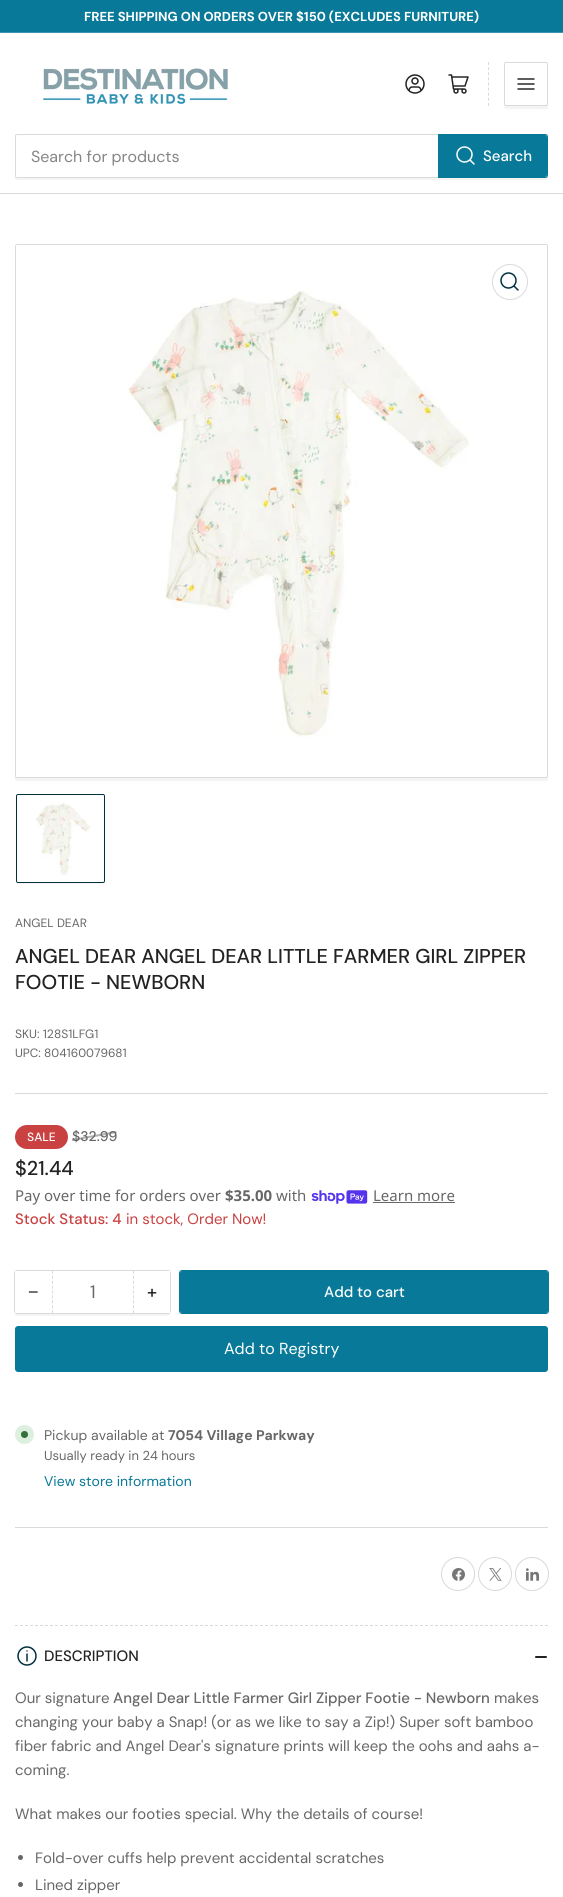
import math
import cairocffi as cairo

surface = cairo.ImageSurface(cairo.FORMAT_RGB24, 563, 1897)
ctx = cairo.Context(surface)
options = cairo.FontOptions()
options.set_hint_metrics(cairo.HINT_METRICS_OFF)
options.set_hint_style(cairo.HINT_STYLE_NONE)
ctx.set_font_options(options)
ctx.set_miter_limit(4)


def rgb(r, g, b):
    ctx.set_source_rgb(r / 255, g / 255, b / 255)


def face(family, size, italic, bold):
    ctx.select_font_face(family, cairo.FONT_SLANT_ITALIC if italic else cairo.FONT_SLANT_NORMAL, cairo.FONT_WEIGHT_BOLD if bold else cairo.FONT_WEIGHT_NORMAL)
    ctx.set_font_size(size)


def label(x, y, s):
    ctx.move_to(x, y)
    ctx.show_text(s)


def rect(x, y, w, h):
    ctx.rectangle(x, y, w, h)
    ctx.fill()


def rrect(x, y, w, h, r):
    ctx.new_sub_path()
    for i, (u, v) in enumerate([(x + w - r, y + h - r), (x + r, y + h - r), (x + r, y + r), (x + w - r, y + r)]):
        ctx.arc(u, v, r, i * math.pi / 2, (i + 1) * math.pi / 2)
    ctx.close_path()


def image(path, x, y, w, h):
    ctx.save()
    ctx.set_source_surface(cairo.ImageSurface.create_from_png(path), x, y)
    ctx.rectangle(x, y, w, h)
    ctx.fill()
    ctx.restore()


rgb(255, 255, 255)
ctx.paint()
rgb(8, 121, 152)
rect(0, 0, 563, 32)
rgb(57, 148, 173)
rect(0, 32, 563, 1)
face('DM Sans', 13, 0, 1)
rgb(255, 255, 255)
label(84, 21, 'FREE SHIPPING ON ORDERS OVER $150 (EXCLUDES FURNITURE)')
rgb(218, 218, 218)
rect(0, 193, 563, 1)
image('image0.png', 43, 68, 185, 36)
image('image1.png', 405, 74, 20, 20)
image('image2.png', 448, 74, 21, 20)
ctx.new_path()
ctx.move_to(488.5, 62)
ctx.line_to(488.5, 106)
ctx.set_line_width(1)
ctx.set_dash([3, 2.12])
ctx.stroke()
rgb(244, 244, 244)
ctx.new_path()
ctx.move_to(504, 104)
ctx.curve_to(504, 111, 505, 109, 513, 109)
ctx.line_to(539, 109)
ctx.curve_to(547, 109, 548, 111, 548, 104)
ctx.curve_to(548, 105, 547, 106, 546, 106)
ctx.line_to(506, 106)
ctx.curve_to(505, 106, 504, 105, 504, 104)
ctx.close_path()
ctx.fill()
rrect(504.5, 62.5, 43, 43, 1.5)
rgb(218, 218, 218)
ctx.set_dash([])
ctx.stroke()
image('image3.png', 517, 78, 18, 12)
rgb(244, 244, 244)
ctx.new_path()
ctx.move_to(15, 176)
ctx.line_to(15, 179)
ctx.line_to(16, 180)
ctx.line_to(546, 180)
ctx.curve_to(548, 180, 548, 178, 548, 176)
ctx.curve_to(548, 177, 547, 178, 546, 178)
ctx.line_to(17, 178)
ctx.curve_to(16, 178, 15, 177, 15, 176)
ctx.close_path()
ctx.fill()
rrect(15.5, 134.5, 532, 43, 1.5)
rgb(218, 218, 218)
ctx.stroke()
face('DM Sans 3', 16, 0, 0)
rgb(133, 133, 133)
label(31, 162, 'Search for products')
ctx.new_path()
ctx.move_to(438.5, 134.5)
ctx.line_to(545, 134.5)
ctx.curve_to(546.5, 134.5, 547.5, 135.5, 547.5, 137)
ctx.line_to(547.5, 175)
ctx.curve_to(547.5, 176.5, 546.5, 177.5, 545, 177.5)
ctx.line_to(438.5, 177.5)
ctx.close_path()
rgb(8, 121, 152)
ctx.stroke()
ctx.new_path()
ctx.move_to(439, 135)
ctx.line_to(545, 135)
ctx.curve_to(546, 135, 547, 136, 547, 137)
ctx.line_to(547, 175)
ctx.curve_to(547, 176, 546, 177, 545, 177)
ctx.line_to(439, 177)
ctx.close_path()
ctx.fill()
image('image4.png', 456, 146, 19, 19)
face('DM Sans 3 Medium', 15, 0, 0)
rgb(255, 255, 255)
label(483, 161, 'Search')
rgb(244, 244, 244)
ctx.new_path()
ctx.move_to(15, 776)
ctx.line_to(15, 779)
ctx.curve_to(15, 780, 16, 781, 17, 781)
ctx.line_to(546, 781)
ctx.curve_to(547, 781, 548, 780, 548, 779)
ctx.line_to(548, 776)
ctx.curve_to(548, 777, 547, 778, 546, 778)
ctx.line_to(17, 778)
ctx.curve_to(16, 778, 15, 777, 15, 776)
ctx.close_path()
ctx.fill()
rrect(15.5, 244.5, 532, 533, 1.5)
rgb(218, 218, 218)
ctx.stroke()
ctx.arc(510, 282, 17.5, 0, 2 * math.pi)
ctx.stroke()
image('image5.png', 500, 272, 19, 19)
image('image6.png', 128, 290, 341, 447)
ctx.save()
ctx.rectangle(15, 793, 533, 91)
ctx.clip()
rgb(244, 244, 244)
ctx.new_path()
ctx.move_to(16, 881)
ctx.line_to(16, 884)
ctx.curve_to(16, 885, 17, 886, 18, 886)
ctx.line_to(103, 886)
ctx.curve_to(104, 886, 105, 885, 105, 884)
ctx.line_to(105, 881)
ctx.curve_to(105, 882, 104, 883, 103, 883)
ctx.line_to(18, 883)
ctx.curve_to(17, 883, 16, 882, 16, 881)
ctx.close_path()
ctx.fill()
ctx.restore()
rrect(16.5, 794.5, 88, 88, 1.5)
rgb(0, 48, 62)
ctx.stroke()
image('image7.png', 36, 803, 54, 72)
rgb(218, 218, 218)
rect(15, 1093, 533, 1)
face('DM Sans', 12, 0, 0)
rgb(103, 103, 103)
label(15, 927, 'ANGEL DEAR')
face('DM Sans Medium', 20, 0, 0)
rgb(35, 35, 35)
label(15, 963, 'ANGEL DEAR ANGEL DEAR LITTLE FARMER GIRL ZIPPER')
label(15, 989, 'FOOTIE - NEWBORN')
face('DM Sans', 12, 0, 0)
rgb(103, 103, 103)
label(15, 1038, 'SKU: 128S1LFG1')
label(15, 1057, 'UPC: 804160079681')
rgb(202, 65, 65)
rrect(16, 1126, 51, 22, 11)
ctx.fill_preserve()
ctx.set_line_width(2)
ctx.stroke()
face('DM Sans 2 Medium', 12, 0, 0)
rgb(255, 255, 255)
label(27, 1141, 'SALE')
face('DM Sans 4 Medium', 14, 0, 0)
rgb(103, 103, 103)
label(72, 1141, '$32.99')
ctx.set_source_rgba(0.404, 0.404, 0.404, 0.5)
ctx.new_path()
ctx.move_to(72, 1139)
ctx.line_to(116, 1131)
ctx.line_to(117, 1133)
ctx.line_to(72, 1141)
ctx.close_path()
ctx.fill()
face('DM Sans Medium', 20, 0, 0)
rgb(35, 35, 35)
label(15, 1175, '$21.44')
face('Noto Sans', 15, 0, 0)
rgb(103, 103, 103)
label(15, 1201, 'Pay over time for orders over')
face('Noto Sans', 15, 0, 1)
label(225, 1201, '$35.00')
face('Noto Sans', 15, 0, 0)
label(276, 1201, 'with')
image('image8.png', 311, 1190, 57, 14)
label(373, 1201, 'Learn more')
rect(373, 1202, 82, 1)
face('DM Sans 3 Medium', 15, 0, 0)
rgb(202, 65, 65)
label(15, 1224, 'Stock Status: 4')
face('DM Sans 2', 15, 0, 0)
label(126, 1224, 'in stock, Order Now!')
rgb(244, 244, 244)
ctx.new_path()
ctx.move_to(15, 1311)
ctx.line_to(15, 1314)
ctx.curve_to(15, 1315, 16, 1316, 17, 1316)
ctx.line_to(168, 1316)
ctx.curve_to(169, 1316, 170, 1315, 170, 1314)
ctx.line_to(170, 1311)
ctx.curve_to(170, 1312, 169, 1313, 168, 1313)
ctx.line_to(17, 1313)
ctx.curve_to(16, 1313, 15, 1312, 15, 1311)
ctx.close_path()
ctx.fill()
rrect(14.5, 1270.5, 156, 43, 2.5)
rgb(218, 218, 218)
ctx.set_line_width(1)
ctx.stroke()
rgb(255, 255, 255)
rect(15, 1271, 2, 42)
face('Liberation Sans', 18, 0, 0)
rgb(35, 35, 35)
label(28, 1298, '−')
ctx.new_path()
ctx.move_to(133.5, 1271)
ctx.line_to(133.5, 1313)
rgb(218, 218, 218)
ctx.set_dash([3, 1.88])
ctx.stroke()
ctx.new_path()
ctx.move_to(52.5, 1271)
ctx.line_to(52.5, 1313)
ctx.stroke()
face('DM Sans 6', 18, 0, 0)
rgb(103, 103, 103)
label(90, 1298, '1')
rgb(255, 255, 255)
rect(168, 1271, 2, 42)
face('DM Sans 2 Medium', 18, 0, 0)
rgb(35, 35, 35)
label(147, 1298, '+')
rrect(179.5, 1270.5, 369, 43, 2.5)
rgb(8, 121, 152)
ctx.set_dash([])
ctx.stroke()
rrect(180, 1271, 368, 42, 2)
ctx.fill()
face('DM Sans 3 Medium', 15, 0, 0)
rgb(255, 255, 255)
label(324, 1297, 'Add to cart')
rgb(8, 121, 152)
rrect(15, 1326, 533, 46, 3)
ctx.fill()
face('DM Sans 3', 16, 0, 0)
rgb(255, 255, 255)
label(224, 1354, 'Add to Registry')
rgb(221, 240, 223)
ctx.new_path()
ctx.arc(24.5, 1434.5, 9.5, 0, 2 * math.pi)
ctx.fill()
rgb(51, 114, 57)
ctx.arc(24.5, 1434.5, 3.5, 0, 2 * math.pi)
ctx.fill()
face('DM Sans 4', 14, 0, 0)
rgb(103, 103, 103)
label(44, 1440, 'Pickup available at')
face('DM Sans 2', 14, 0, 1)
label(168, 1440, '7054 Village Parkway')
face('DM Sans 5', 13, 0, 0)
label(44, 1460, 'Usually ready in 24 hours')
face('DM Sans 4', 14, 0, 0)
rgb(8, 121, 152)
label(44, 1486, 'View store information')
rgb(218, 218, 218)
rect(15, 1527, 533, 1)
ctx.new_path()
ctx.arc(458, 1574, 16.5, 0, 2 * math.pi)
rgb(217, 217, 217)
ctx.stroke()
image('image9.png', 452, 1568, 13, 13)
ctx.arc(495, 1574, 16.5, 0, 2 * math.pi)
ctx.stroke()
image('image10.png', 489, 1568, 13, 13)
ctx.arc(532, 1574, 16.5, 0, 2 * math.pi)
ctx.stroke()
image('image11.png', 526, 1568, 13, 13)
ctx.new_path()
ctx.move_to(15, 1625.5)
ctx.line_to(548, 1625.5)
rgb(218, 218, 218)
ctx.set_dash([3, 2])
ctx.stroke()
image('image12.png', 17, 1646, 20, 20)
face('DM Sans 3 Medium', 15, 0, 0)
rgb(35, 35, 35)
label(44, 1661, 'DESCRIPTION')
rrect(535, 1656, 7, 2, 1)
ctx.fill()
rrect(539, 1656, 8, 2, 1)
ctx.fill()
face('DM Sans 2', 15, 0, 0)
rgb(103, 103, 103)
label(15, 1703, 'Our signature')
face('DM Sans 3 Medium', 15, 0, 0)
label(113, 1703, 'Angel Dear Little Farmer Girl Zipper Footie - Newborn')
face('DM Sans 2', 15, 0, 0)
label(494, 1703, 'makes')
label(15, 1727, 'changing your baby a Snap! (or as we like to say a Zip!) Super soft bamboo')
label(15, 1751, 'fiber fabric and Angel Dear\'s signature prints will keep the oohs and aahs a-')
label(15, 1775, 'coming.')
label(15, 1819, 'What makes our footies special. Why the details of course!')
ctx.new_path()
ctx.arc(20.5, 1857.5, 2.5, 0, 2 * math.pi)
ctx.fill()
label(35, 1863, 'Fold-over cuffs help prevent accidental scratches')
ctx.new_path()
ctx.arc(20.5, 1884.5, 2.5, 0, 2 * math.pi)
ctx.fill()
label(35, 1890, 'Lined zipper')
surface.write_to_png('render.png')
